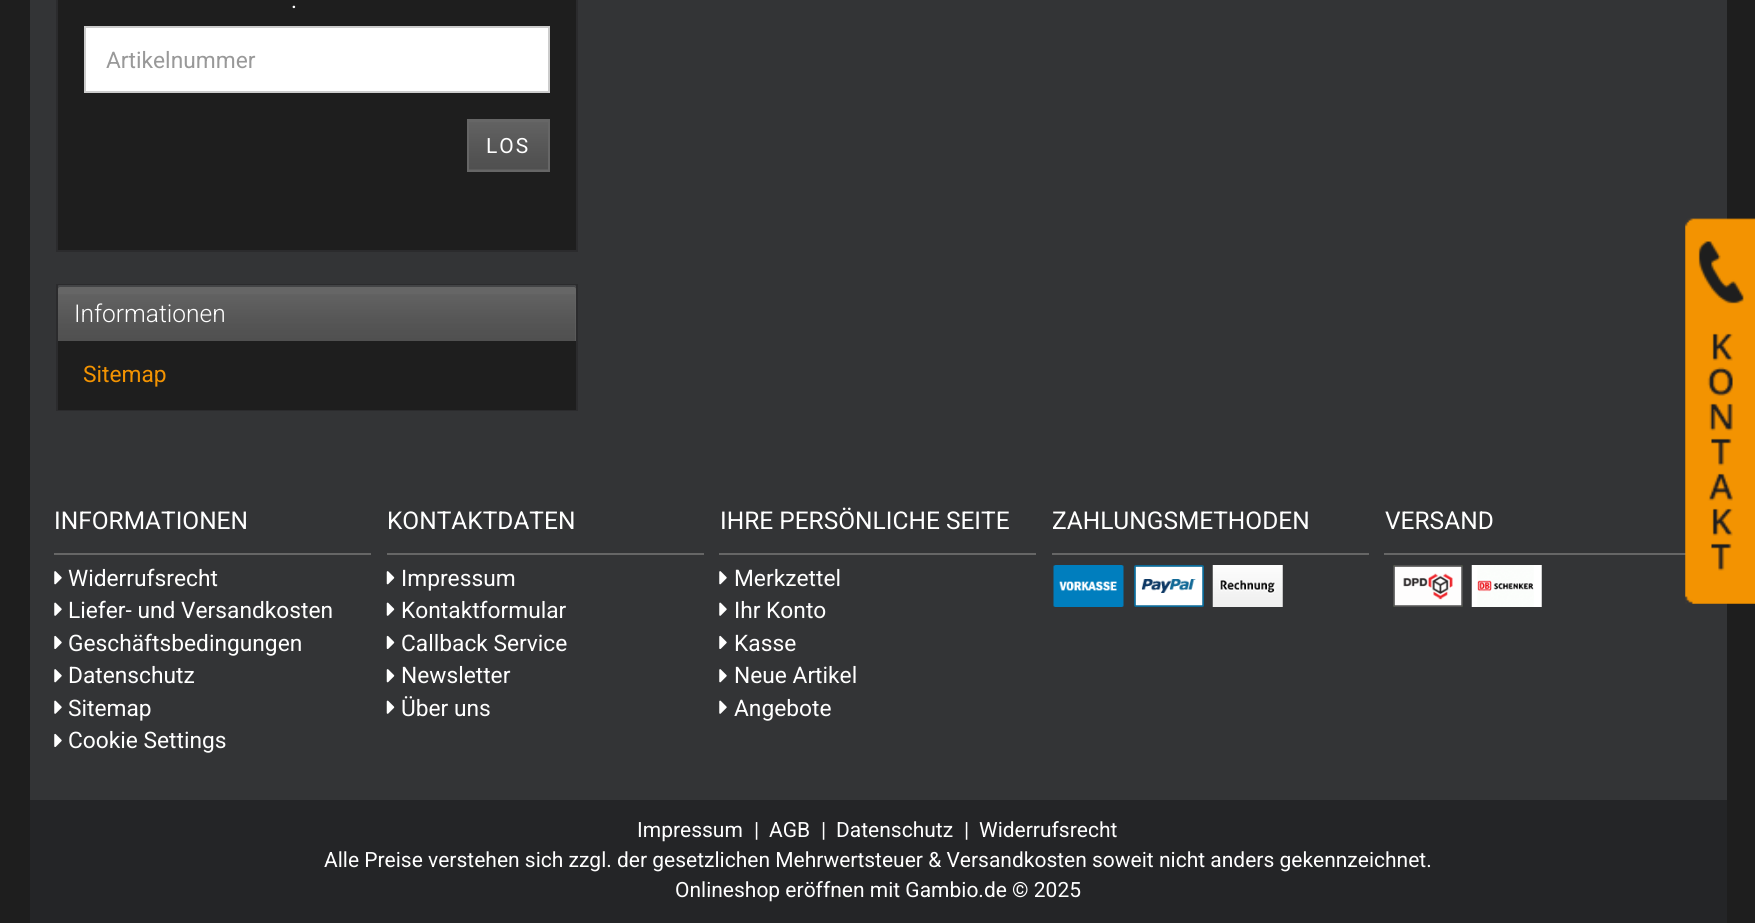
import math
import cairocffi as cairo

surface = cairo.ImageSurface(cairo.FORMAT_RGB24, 1755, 923)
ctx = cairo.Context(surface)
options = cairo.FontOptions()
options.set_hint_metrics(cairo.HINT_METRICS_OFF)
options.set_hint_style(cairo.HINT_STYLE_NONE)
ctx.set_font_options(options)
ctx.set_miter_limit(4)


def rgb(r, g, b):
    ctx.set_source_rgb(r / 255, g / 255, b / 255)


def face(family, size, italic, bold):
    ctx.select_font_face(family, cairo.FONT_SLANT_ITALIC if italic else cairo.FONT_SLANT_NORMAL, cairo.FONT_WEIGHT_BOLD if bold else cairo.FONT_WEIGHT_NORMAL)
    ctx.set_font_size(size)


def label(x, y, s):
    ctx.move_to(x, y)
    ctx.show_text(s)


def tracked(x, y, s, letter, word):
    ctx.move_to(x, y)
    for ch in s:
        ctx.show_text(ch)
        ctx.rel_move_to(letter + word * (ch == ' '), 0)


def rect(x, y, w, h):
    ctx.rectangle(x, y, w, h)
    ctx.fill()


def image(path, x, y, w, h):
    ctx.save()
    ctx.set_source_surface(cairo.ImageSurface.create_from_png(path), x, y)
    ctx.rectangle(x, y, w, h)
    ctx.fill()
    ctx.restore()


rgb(30, 30, 30)
ctx.paint()
rgb(51, 52, 54)
rect(30, 0, 1697, 800)
ctx.rectangle(57, -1, 520, 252)
rgb(43, 43, 45)
ctx.stroke()
rgb(30, 30, 30)
rect(58, 0, 518, 250)
face('Roboto', 22.75, 0, 0)
rgb(255, 255, 255)
label(291, 8, '.')
ctx.rectangle(85, 27, 464, 65)
ctx.fill_preserve()
rgb(204, 204, 204)
ctx.stroke()
rgb(153, 153, 153)
label(106, 68, 'Artikelnummer')
rgb(102, 102, 102)
rect(469, 121, 79, 49)
image('image0.png', 469, 122, 79, 48)
ctx.rectangle(468, 120, 81, 51)
ctx.stroke()
face('Roboto', 21, 0, 0)
rgb(255, 255, 255)
tracked(486, 153, 'LOS', 2, 0)
ctx.rectangle(57, 285, 520, 125)
rgb(43, 43, 45)
ctx.stroke()
rgb(102, 102, 102)
ctx.new_path()
ctx.move_to(60, 285)
ctx.line_to(574, 285)
ctx.curve_to(575, 285, 576, 286, 576, 287)
ctx.line_to(576, 341)
ctx.line_to(58, 341)
ctx.line_to(58, 287)
ctx.curve_to(58, 286, 59, 285, 60, 285)
ctx.close_path()
ctx.fill()
image('image1.png', 58, 294, 518, 47)
rgb(67, 68, 70)
ctx.new_path()
ctx.move_to(60, 287)
ctx.line_to(574, 287)
ctx.curve_to(575, 287, 576, 288, 576, 289)
ctx.curve_to(576, 287, 576, 285, 574, 285)
ctx.line_to(59, 285)
ctx.line_to(58, 286)
ctx.line_to(58, 289)
ctx.curve_to(58, 288, 59, 287, 60, 287)
ctx.close_path()
ctx.fill()
face('Roboto Light', 24.5, 0, 0)
rgb(255, 255, 255)
label(74, 322, 'Informationen')
rgb(30, 30, 30)
rect(58, 341, 518, 69)
face('Roboto', 22.75, 0, 0)
rgb(243, 147, 1)
label(83, 382, 'Sitemap')
rgb(102, 102, 102)
rect(54, 553, 317, 2)
face('Roboto', 24.5, 0, 0)
rgb(255, 255, 255)
label(54, 529, 'INFORMATIONEN')
image('image2.png', 54, 571, 8, 14)
face('Roboto', 22.75, 0, 0)
label(68, 586, 'Widerrufsrecht')
image('image3.png', 54, 602, 8, 14)
label(68, 618, 'Liefer- und Versandkosten')
image('image4.png', 54, 635, 8, 14)
label(68, 651, 'Geschäftsbedingungen')
image('image2.png', 54, 669, 8, 14)
label(68, 683, 'Datenschutz')
image('image3.png', 54, 700, 8, 14)
label(68, 716, 'Sitemap')
image('image4.png', 54, 733, 8, 14)
label(68, 748, 'Cookie Settings')
rgb(102, 102, 102)
rect(387, 553, 317, 2)
face('Roboto', 24.5, 0, 0)
rgb(255, 255, 255)
label(387, 529, 'KONTAKTDATEN')
image('image5.png', 386, 571, 9, 14)
face('Roboto', 22.75, 0, 0)
label(401, 586, 'Impressum')
image('image6.png', 386, 602, 9, 14)
label(401, 618, 'Kontaktformular')
image('image7.png', 386, 635, 9, 14)
label(401, 651, 'Callback Service')
image('image5.png', 386, 669, 9, 14)
label(401, 683, 'Newsletter')
image('image6.png', 386, 700, 9, 14)
label(401, 716, 'Über uns')
rgb(102, 102, 102)
rect(719, 553, 317, 2)
face('Roboto', 24.5, 0, 0)
rgb(255, 255, 255)
label(720, 529, 'IHRE PERSÖNLICHE SEITE')
image('image2.png', 719, 571, 8, 14)
face('Roboto', 22.75, 0, 0)
label(734, 586, 'Merkzettel')
image('image3.png', 719, 602, 8, 14)
label(734, 618, 'Ihr Konto')
image('image4.png', 719, 635, 8, 14)
label(734, 651, 'Kasse')
image('image2.png', 719, 669, 8, 14)
label(734, 683, 'Neue Artikel')
image('image3.png', 719, 700, 8, 14)
label(734, 716, 'Angebote')
rgb(102, 102, 102)
rect(1052, 553, 317, 2)
face('Roboto', 24.5, 0, 0)
rgb(255, 255, 255)
label(1052, 529, 'ZAHLUNGSMETHODEN')
image('image8.png', 1053, 565, 71, 42)
image('image9.png', 1134, 565, 70, 42)
image('image10.png', 1212, 565, 71, 42)
rgb(102, 102, 102)
rect(1384, 553, 302, 2)
rgb(255, 255, 255)
label(1385, 529, 'VERSAND')
image('image11.png', 1393, 565, 70, 42)
image('image12.png', 1471, 565, 71, 42)
rgb(36, 37, 39)
rect(30, 800, 1697, 123)
face('Roboto', 21, 0, 0)
rgb(255, 255, 255)
label(637, 837, 'Impressum')
label(754, 837, '|')
label(769, 837, 'AGB')
label(821, 837, '|')
label(836, 837, 'Datenschutz')
label(964, 837, '|')
label(979, 837, 'Widerrufsrecht')
label(324, 867, 'Alle Preise verstehen sich zzgl. der gesetzlichen Mehrwertsteuer & Versandkosten soweit nicht anders gekennzeichnet.')
label(675, 897, 'Onlineshop eröffnen mit Gambio.de © 2025')
image('image13.png', 1685, 218, 70, 386)
surface.write_to_png('render.png')
